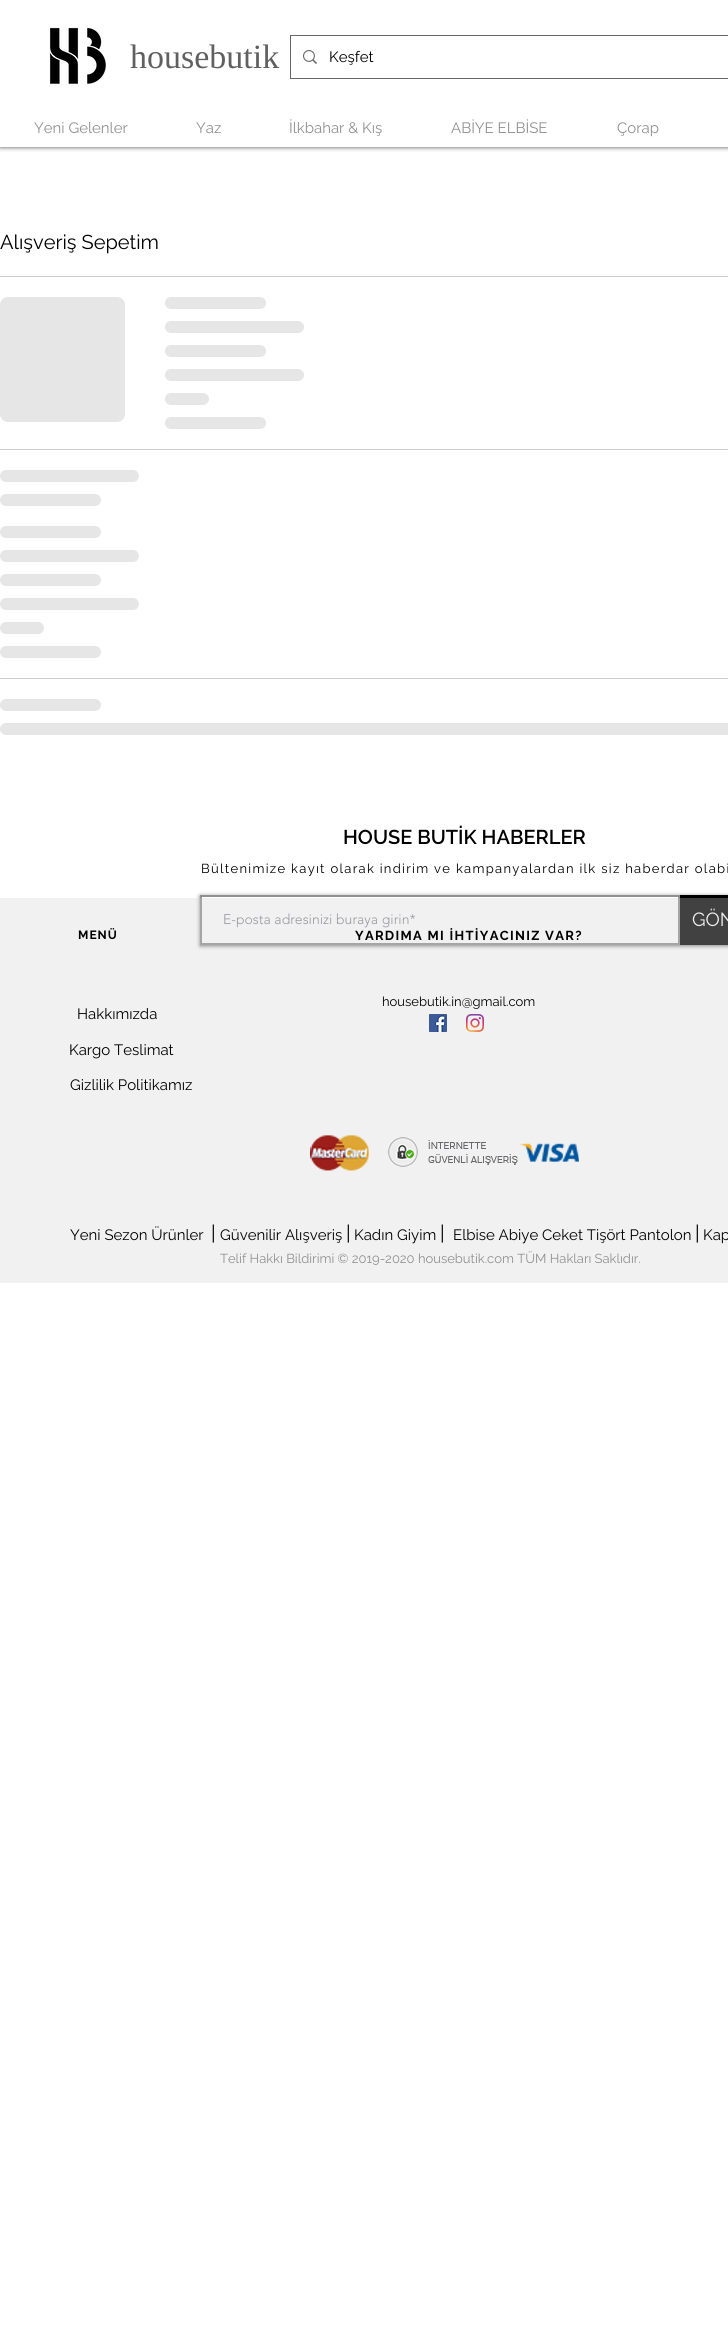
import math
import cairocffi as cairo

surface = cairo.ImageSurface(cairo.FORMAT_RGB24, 728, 2342)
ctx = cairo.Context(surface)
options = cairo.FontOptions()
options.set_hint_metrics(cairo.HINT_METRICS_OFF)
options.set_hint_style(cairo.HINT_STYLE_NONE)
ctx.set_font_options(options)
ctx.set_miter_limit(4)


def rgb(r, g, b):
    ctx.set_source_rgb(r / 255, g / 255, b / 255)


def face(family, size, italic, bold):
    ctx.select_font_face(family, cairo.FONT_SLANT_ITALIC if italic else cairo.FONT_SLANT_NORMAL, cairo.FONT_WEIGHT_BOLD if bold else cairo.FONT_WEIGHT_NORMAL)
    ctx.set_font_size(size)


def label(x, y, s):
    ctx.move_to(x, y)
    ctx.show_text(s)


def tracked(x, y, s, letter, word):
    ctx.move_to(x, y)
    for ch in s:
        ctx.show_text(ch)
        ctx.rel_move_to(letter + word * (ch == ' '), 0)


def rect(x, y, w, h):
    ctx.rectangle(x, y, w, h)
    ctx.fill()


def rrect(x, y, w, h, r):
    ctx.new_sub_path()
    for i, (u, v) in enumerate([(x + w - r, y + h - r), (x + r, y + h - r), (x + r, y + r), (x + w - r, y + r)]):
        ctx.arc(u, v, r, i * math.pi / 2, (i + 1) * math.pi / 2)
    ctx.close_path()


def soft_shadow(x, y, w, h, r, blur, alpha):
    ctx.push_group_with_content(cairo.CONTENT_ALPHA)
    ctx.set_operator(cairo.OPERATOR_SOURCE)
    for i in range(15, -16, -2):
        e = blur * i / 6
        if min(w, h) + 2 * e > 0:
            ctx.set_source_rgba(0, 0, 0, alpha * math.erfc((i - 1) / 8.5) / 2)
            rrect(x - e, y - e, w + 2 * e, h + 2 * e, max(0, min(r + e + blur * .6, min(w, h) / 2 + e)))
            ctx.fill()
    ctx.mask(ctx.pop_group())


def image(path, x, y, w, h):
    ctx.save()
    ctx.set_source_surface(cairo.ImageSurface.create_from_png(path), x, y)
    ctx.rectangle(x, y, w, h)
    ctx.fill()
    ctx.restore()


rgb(255, 255, 255)
ctx.paint()
ctx.save()
ctx.rectangle(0, 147, 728, 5)
ctx.clip()
rgb(0, 0, 0)
soft_shadow(0, 0, 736, 147, 0, 2.5, 0.7)
ctx.restore()
image('image0.png', 49, 27, 57, 57)
face('Liberation Serif', 34, 0, 0)
rgb(96, 96, 96)
label(130, 68, 'housebutik')
ctx.rectangle(290.5, 35.5, 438, 43)
rgb(102, 102, 102)
ctx.set_line_width(1)
ctx.stroke()
image('image1.png', 303, 50, 14, 14)
face('Raleway', 15, 0, 0)
rgb(0, 0, 0)
label(329, 62, 'Keşfet')
rgb(144, 144, 144)
label(34, 133, 'Yeni Gelenler')
label(196, 133, 'Yaz')
label(289, 133, 'İlkbahar & Kış')
label(451, 133, 'ABİYE ELBİSE')
label(617, 133, 'Çorap')
rgb(204, 204, 204)
rect(0, 276, 728, 1)
face('Raleway', 20, 0, 0)
rgb(0, 0, 0)
label(0, 249, 'Alışveriş Sepetim')
gradient = cairo.LinearGradient(0, 360, 500, 360)
gradient.add_color_stop_rgba(0.25, 0.902, 0.902, 0.902, 1)
gradient.add_color_stop_rgba(0.37, 0.8, 0.8, 0.8, 1)
gradient.add_color_stop_rgba(0.63, 0.902, 0.902, 0.902, 1)
ctx.set_source(gradient)
rrect(0, 297, 125, 125, 8)
ctx.fill()
gradient = cairo.LinearGradient(165, 303, 569, 303)
gradient.add_color_stop_rgba(0.25, 0.902, 0.902, 0.902, 1)
gradient.add_color_stop_rgba(0.37, 0.8, 0.8, 0.8, 1)
gradient.add_color_stop_rgba(0.63, 0.902, 0.902, 0.902, 1)
ctx.set_source(gradient)
rrect(165, 297, 101, 12, 6)
ctx.fill()
gradient = cairo.LinearGradient(165, 327, 721, 327)
gradient.add_color_stop_rgba(0.25, 0.902, 0.902, 0.902, 1)
gradient.add_color_stop_rgba(0.37, 0.8, 0.8, 0.8, 1)
gradient.add_color_stop_rgba(0.63, 0.902, 0.902, 0.902, 1)
ctx.set_source(gradient)
rrect(165, 321, 139, 12, 6)
ctx.fill()
gradient = cairo.LinearGradient(165, 351, 569, 351)
gradient.add_color_stop_rgba(0.25, 0.902, 0.902, 0.902, 1)
gradient.add_color_stop_rgba(0.37, 0.8, 0.8, 0.8, 1)
gradient.add_color_stop_rgba(0.63, 0.902, 0.902, 0.902, 1)
ctx.set_source(gradient)
rrect(165, 345, 101, 12, 6)
ctx.fill()
gradient = cairo.LinearGradient(165, 375, 721, 375)
gradient.add_color_stop_rgba(0.25, 0.902, 0.902, 0.902, 1)
gradient.add_color_stop_rgba(0.37, 0.8, 0.8, 0.8, 1)
gradient.add_color_stop_rgba(0.63, 0.902, 0.902, 0.902, 1)
ctx.set_source(gradient)
rrect(165, 369, 139, 12, 6)
ctx.fill()
gradient = cairo.LinearGradient(165, 399, 341, 399)
gradient.add_color_stop_rgba(0.25, 0.902, 0.902, 0.902, 1)
gradient.add_color_stop_rgba(0.37, 0.8, 0.8, 0.8, 1)
gradient.add_color_stop_rgba(0.63, 0.902, 0.902, 0.902, 1)
ctx.set_source(gradient)
rrect(165, 393, 44, 12, 6)
ctx.fill()
gradient = cairo.LinearGradient(165, 423, 569, 423)
gradient.add_color_stop_rgba(0.25, 0.902, 0.902, 0.902, 1)
gradient.add_color_stop_rgba(0.37, 0.8, 0.8, 0.8, 1)
gradient.add_color_stop_rgba(0.63, 0.902, 0.902, 0.902, 1)
ctx.set_source(gradient)
rrect(165, 417, 101, 12, 6)
ctx.fill()
rgb(204, 204, 204)
rect(0, 449, 728, 1)
gradient = cairo.LinearGradient(0, 476, 556, 476)
gradient.add_color_stop_rgba(0.25, 0.902, 0.902, 0.902, 1)
gradient.add_color_stop_rgba(0.37, 0.8, 0.8, 0.8, 1)
gradient.add_color_stop_rgba(0.63, 0.902, 0.902, 0.902, 1)
ctx.set_source(gradient)
rrect(0, 470, 139, 12, 6)
ctx.fill()
gradient = cairo.LinearGradient(0, 500, 404, 500)
gradient.add_color_stop_rgba(0.25, 0.902, 0.902, 0.902, 1)
gradient.add_color_stop_rgba(0.37, 0.8, 0.8, 0.8, 1)
gradient.add_color_stop_rgba(0.63, 0.902, 0.902, 0.902, 1)
ctx.set_source(gradient)
rrect(0, 494, 101, 12, 6)
ctx.fill()
gradient = cairo.LinearGradient(0, 532, 404, 532)
gradient.add_color_stop_rgba(0.25, 0.902, 0.902, 0.902, 1)
gradient.add_color_stop_rgba(0.37, 0.8, 0.8, 0.8, 1)
gradient.add_color_stop_rgba(0.63, 0.902, 0.902, 0.902, 1)
ctx.set_source(gradient)
rrect(0, 526, 101, 12, 6)
ctx.fill()
gradient = cairo.LinearGradient(0, 556, 556, 556)
gradient.add_color_stop_rgba(0.25, 0.902, 0.902, 0.902, 1)
gradient.add_color_stop_rgba(0.37, 0.8, 0.8, 0.8, 1)
gradient.add_color_stop_rgba(0.63, 0.902, 0.902, 0.902, 1)
ctx.set_source(gradient)
rrect(0, 550, 139, 12, 6)
ctx.fill()
gradient = cairo.LinearGradient(0, 580, 404, 580)
gradient.add_color_stop_rgba(0.25, 0.902, 0.902, 0.902, 1)
gradient.add_color_stop_rgba(0.37, 0.8, 0.8, 0.8, 1)
gradient.add_color_stop_rgba(0.63, 0.902, 0.902, 0.902, 1)
ctx.set_source(gradient)
rrect(0, 574, 101, 12, 6)
ctx.fill()
gradient = cairo.LinearGradient(0, 604, 556, 604)
gradient.add_color_stop_rgba(0.25, 0.902, 0.902, 0.902, 1)
gradient.add_color_stop_rgba(0.37, 0.8, 0.8, 0.8, 1)
gradient.add_color_stop_rgba(0.63, 0.902, 0.902, 0.902, 1)
ctx.set_source(gradient)
rrect(0, 598, 139, 12, 6)
ctx.fill()
gradient = cairo.LinearGradient(0, 628, 176, 628)
gradient.add_color_stop_rgba(0.25, 0.902, 0.902, 0.902, 1)
gradient.add_color_stop_rgba(0.37, 0.8, 0.8, 0.8, 1)
gradient.add_color_stop_rgba(0.63, 0.902, 0.902, 0.902, 1)
ctx.set_source(gradient)
rrect(0, 622, 44, 12, 6)
ctx.fill()
gradient = cairo.LinearGradient(0, 652, 404, 652)
gradient.add_color_stop_rgba(0.25, 0.902, 0.902, 0.902, 1)
gradient.add_color_stop_rgba(0.37, 0.8, 0.8, 0.8, 1)
gradient.add_color_stop_rgba(0.63, 0.902, 0.902, 0.902, 1)
ctx.set_source(gradient)
rrect(0, 646, 101, 12, 6)
ctx.fill()
rgb(204, 204, 204)
rect(0, 678, 728, 1)
gradient = cairo.LinearGradient(0, 705, 404, 705)
gradient.add_color_stop_rgba(0.25, 0.902, 0.902, 0.902, 1)
gradient.add_color_stop_rgba(0.37, 0.8, 0.8, 0.8, 1)
gradient.add_color_stop_rgba(0.63, 0.902, 0.902, 0.902, 1)
ctx.set_source(gradient)
rrect(0, 699, 101, 12, 6)
ctx.fill()
gradient = cairo.LinearGradient(0, 729, 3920, 729)
gradient.add_color_stop_rgba(0.25, 0.902, 0.902, 0.902, 1)
gradient.add_color_stop_rgba(0.37, 0.8, 0.8, 0.8, 1)
gradient.add_color_stop_rgba(0.63, 0.902, 0.902, 0.902, 1)
ctx.set_source(gradient)
rrect(0, 723, 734, 12, 6)
ctx.fill()
face('Raleway SemiBold', 20, 0, 0)
rgb(0, 0, 0)
label(343, 844, 'HOUSE BUTİK HABERLER')
face('Raleway', 13, 0, 0)
tracked(201, 873, 'Bültenimize kayıt olarak indirim ve kampanyalardan ilk siz haberdar olabi', 1.3, 0)
ctx.save()
ctx.set_fill_rule(cairo.FILL_RULE_EVEN_ODD)
ctx.new_path()
ctx.move_to(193, 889)
ctx.line_to(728, 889)
ctx.line_to(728, 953)
ctx.line_to(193, 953)
ctx.close_path()
ctx.move_to(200, 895)
ctx.line_to(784, 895)
ctx.line_to(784, 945)
ctx.line_to(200, 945)
ctx.close_path()
ctx.clip()
rgb(0, 0, 0)
soft_shadow(200, 896, 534, 50, 0, 2, 0.6)
ctx.restore()
ctx.rectangle(201, 896, 478, 48)
rgb(145, 145, 145)
ctx.set_line_width(2)
ctx.stroke()
face('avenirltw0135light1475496 Light', 14, 0, 0)
rgb(127, 128, 138)
label(223, 924, 'E-posta adresinizi buraya girin*')
rgb(0, 0, 0)
rect(680, 895, 48, 50)
face('Raleway', 19, 0, 0)
rgb(255, 255, 255)
label(692, 926, 'GÖN')
ctx.set_source_rgba(0.831, 0.831, 0.831, 0.31)
rect(0, 898, 728, 385)
face('Raleway', 12, 0, 1)
rgb(0, 0, 0)
tracked(78, 939, 'MENÜ', 1, 0)
face('Raleway', 13, 0, 1)
tracked(355, 940, 'YARDIMA MI İHTİYACINIZ VAR?', 1.3, 0)
face('Raleway', 13, 0, 0)
label(382, 1006, 'housebutik.in@gmail.com')
face('Raleway', 15, 0, 0)
label(77, 1019, 'Hakkımızda')
label(69, 1055, 'Kargo Teslimat')
label(70, 1090, 'Gizlilik Politikamız')
image('image2.png', 310, 1135, 59, 36)
image('image3.png', 388, 1137, 130, 30)
image('image4.png', 520, 1143, 59, 19)
label(70, 1240, 'Yeni Sezon Ürünler')
face('Raleway', 20, 0, 0)
label(211, 1240, '|')
face('Raleway', 15, 0, 0)
label(220, 1240, 'Güvenilir Alışveriş')
face('Raleway', 20, 0, 0)
label(346, 1240, '|')
face('Raleway', 15, 0, 0)
label(354, 1240, 'Kadın Giyim')
face('Raleway', 20, 0, 0)
label(440, 1240, '|')
face('Raleway', 15, 0, 0)
label(453, 1240, 'Elbise Abiye Ceket Tişört Pantolon')
face('Raleway', 20, 0, 0)
label(695, 1240, '|')
face('Raleway', 15, 0, 0)
label(703, 1240, 'Kap')
face('Raleway', 13, 0, 0)
rgb(144, 144, 144)
label(220, 1263, 'Telif Hakkı Bildirimi © 2019-2020 housebutik.com TÜM Hakları Saklıdır.')
image('image5.png', 429, 1014, 18, 18)
image('image6.png', 466, 1014, 18, 18)
surface.write_to_png('render.png')
